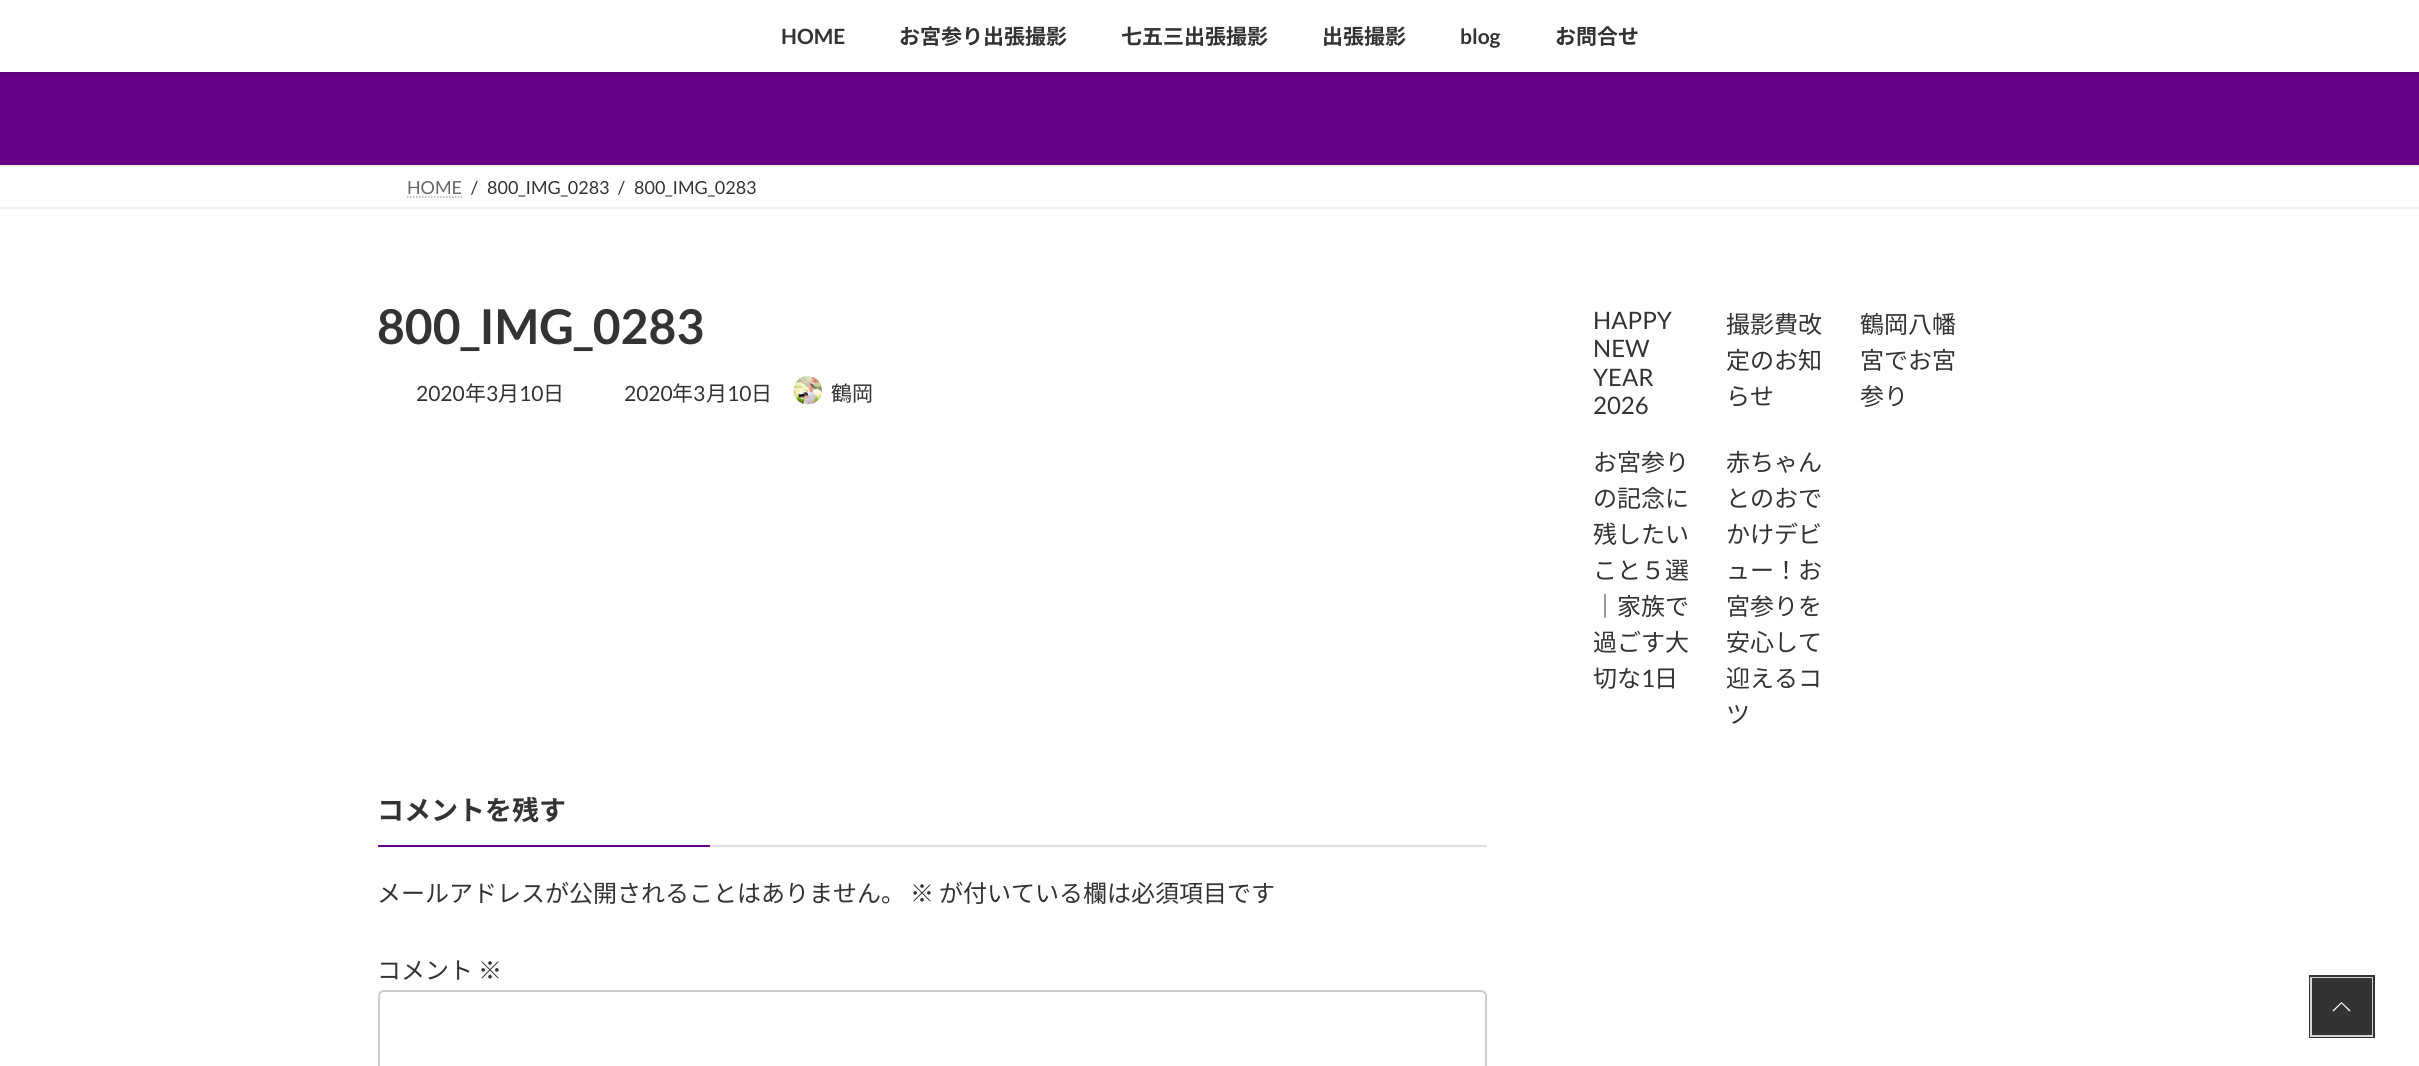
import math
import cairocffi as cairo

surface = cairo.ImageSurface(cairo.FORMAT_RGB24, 2419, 1066)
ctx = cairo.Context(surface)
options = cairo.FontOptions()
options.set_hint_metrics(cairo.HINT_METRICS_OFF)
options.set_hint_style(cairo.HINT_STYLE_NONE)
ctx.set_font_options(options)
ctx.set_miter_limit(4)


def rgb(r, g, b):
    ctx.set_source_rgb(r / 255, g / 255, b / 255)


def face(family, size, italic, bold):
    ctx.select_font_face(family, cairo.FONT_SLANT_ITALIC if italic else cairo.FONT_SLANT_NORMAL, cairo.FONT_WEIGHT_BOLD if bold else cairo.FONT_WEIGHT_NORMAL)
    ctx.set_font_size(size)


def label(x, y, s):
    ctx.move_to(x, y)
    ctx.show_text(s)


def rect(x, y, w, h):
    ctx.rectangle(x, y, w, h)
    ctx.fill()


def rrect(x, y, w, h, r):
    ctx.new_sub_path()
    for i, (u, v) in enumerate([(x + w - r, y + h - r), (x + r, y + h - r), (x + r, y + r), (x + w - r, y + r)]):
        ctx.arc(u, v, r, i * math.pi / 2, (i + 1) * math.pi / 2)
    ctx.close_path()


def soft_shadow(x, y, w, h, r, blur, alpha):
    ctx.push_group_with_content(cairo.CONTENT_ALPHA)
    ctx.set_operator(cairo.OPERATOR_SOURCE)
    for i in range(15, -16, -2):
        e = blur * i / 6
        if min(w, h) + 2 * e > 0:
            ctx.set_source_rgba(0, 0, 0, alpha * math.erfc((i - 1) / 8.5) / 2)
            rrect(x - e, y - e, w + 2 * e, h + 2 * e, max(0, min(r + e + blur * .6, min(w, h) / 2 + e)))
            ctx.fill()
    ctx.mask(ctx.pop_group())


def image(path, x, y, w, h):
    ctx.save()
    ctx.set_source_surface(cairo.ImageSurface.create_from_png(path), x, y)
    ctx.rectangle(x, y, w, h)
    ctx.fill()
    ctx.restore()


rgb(255, 255, 255)
ctx.paint()
rgb(103, 0, 135)
rect(0, 72, 2419, 93)
rgb(0, 0, 0)
soft_shadow(0, 2, 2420, 72, 0, 2, 0.1)
rgb(255, 255, 255)
rect(0, 0, 2419, 72)
face('Lato', 21, 0, 1)
rgb(51, 51, 51)
label(781, 44, 'HOME')
face('Noto Sans JP', 21, 0, 1)
label(899, 44, 'お宮参り出張撮影')
label(1121, 44, '七五三出張撮影')
label(1322, 44, '出張撮影')
face('Lato', 21, 0, 1)
label(1460, 44, 'blog')
face('Noto Sans JP', 21, 0, 1)
label(1555, 44, 'お問合せ')
rgb(240, 240, 240)
rect(0, 165, 2419, 2)
rect(0, 207, 2419, 2)
face('Lato', 18, 0, 0)
rgb(102, 102, 102)
label(407, 194, 'HOME')
ctx.new_path()
ctx.move_to(407, 197)
ctx.line_to(462, 197)
rgb(179, 179, 179)
ctx.set_line_width(1.5)
ctx.set_dash([1.5, 1.5])
ctx.stroke()
rgb(51, 51, 51)
label(471, 194, '/')
label(487, 194, '800_IMG_0283')
label(618, 194, '/')
label(634, 194, '800_IMG_0283')
face('Lato', 48, 0, 1)
label(377, 344, '800_IMG_0283')
face('Lato', 21, 0, 0)
label(416, 401, '2020')
face('Noto Sans JP', 21, 0, 0)
label(465, 401, '年')
face('Lato', 21, 0, 0)
label(486, 401, '3')
face('Noto Sans JP', 21, 0, 0)
label(498, 401, '月')
face('Lato', 21, 0, 0)
label(519, 401, '10')
face('Noto Sans JP', 21, 0, 0)
label(543, 401, '日')
face('Lato', 21, 0, 0)
label(624, 401, '2020')
face('Noto Sans JP', 21, 0, 0)
label(672, 401, '年')
face('Lato', 21, 0, 0)
label(693, 401, '3')
face('Noto Sans JP', 21, 0, 0)
label(706, 401, '月')
face('Lato', 21, 0, 0)
label(727, 401, '10')
face('Noto Sans JP', 21, 0, 0)
label(751, 401, '日')
image('image0.png', 793, 376, 29, 29)
label(831, 401, '鶴岡')
rgb(224, 224, 224)
rect(710, 845, 777, 2)
face('Noto Sans JP', 27, 0, 1)
rgb(51, 51, 51)
label(377, 820, 'コメントを残す')
rgb(103, 0, 135)
rect(378, 845, 332, 2)
face('Noto Sans JP', 24, 0, 0)
rgb(51, 51, 51)
label(377, 902, 'メールアドレスが公開されることはありません。')
label(910, 902, '※')
label(939, 902, 'が付いている欄は必須項目です')
label(377, 979, 'コメント')
label(478, 979, '※')
rrect(379, 991, 1107, 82, 5)
rgb(204, 204, 204)
ctx.set_line_width(2)
ctx.set_dash([])
ctx.stroke()
face('Lato', 24, 0, 0)
rgb(51, 51, 51)
label(1593, 329, 'HAPPY')
label(1593, 357, 'NEW')
label(1593, 386, 'YEAR')
label(1593, 414, '2026')
face('Noto Sans JP', 24, 0, 0)
label(1726, 333, '撮影費改')
label(1726, 369, '定のお知')
label(1726, 405, 'らせ')
label(1860, 333, '鶴岡八幡')
label(1860, 369, '宮でお宮')
label(1860, 405, '参り')
label(1593, 471, 'お宮参り')
label(1593, 507, 'の記念に')
label(1593, 543, '残したい')
label(1593, 579, 'こと５選')
label(1593, 615, '｜家族で')
label(1593, 651, '過ごす大')
label(1593, 687, '切な')
face('Lato', 24, 0, 0)
label(1641, 687, '1')
face('Noto Sans JP', 24, 0, 0)
label(1654, 687, '日')
label(1726, 471, '赤ちゃん')
label(1726, 507, 'とのおで')
label(1726, 543, 'かけデビ')
label(1726, 579, 'ュー！お')
label(1726, 615, '宮参りを')
label(1726, 651, '安心して')
label(1726, 687, '迎えるコ')
label(1726, 723, 'ツ')
ctx.rectangle(2310.5, 976.5, 63, 60)
ctx.set_line_width(3)
ctx.stroke()
ctx.rectangle(2311, 978, 61, 58)
ctx.set_source_rgba(1, 1, 1, 0.8)
ctx.set_line_width(2)
ctx.stroke()
rgb(51, 51, 51)
rect(2312, 978, 60, 57)
rgb(255, 255, 255)
ctx.new_path()
ctx.move_to(2350.5, 1010.5)
ctx.line_to(2349.5, 1011.5)
ctx.line_to(2341.5, 1003.5)
ctx.line_to(2333.5, 1011.5)
ctx.line_to(2332.5, 1010.5)
ctx.line_to(2341.5, 1002)
ctx.close_path()
ctx.fill()
surface.write_to_png('render.png')
